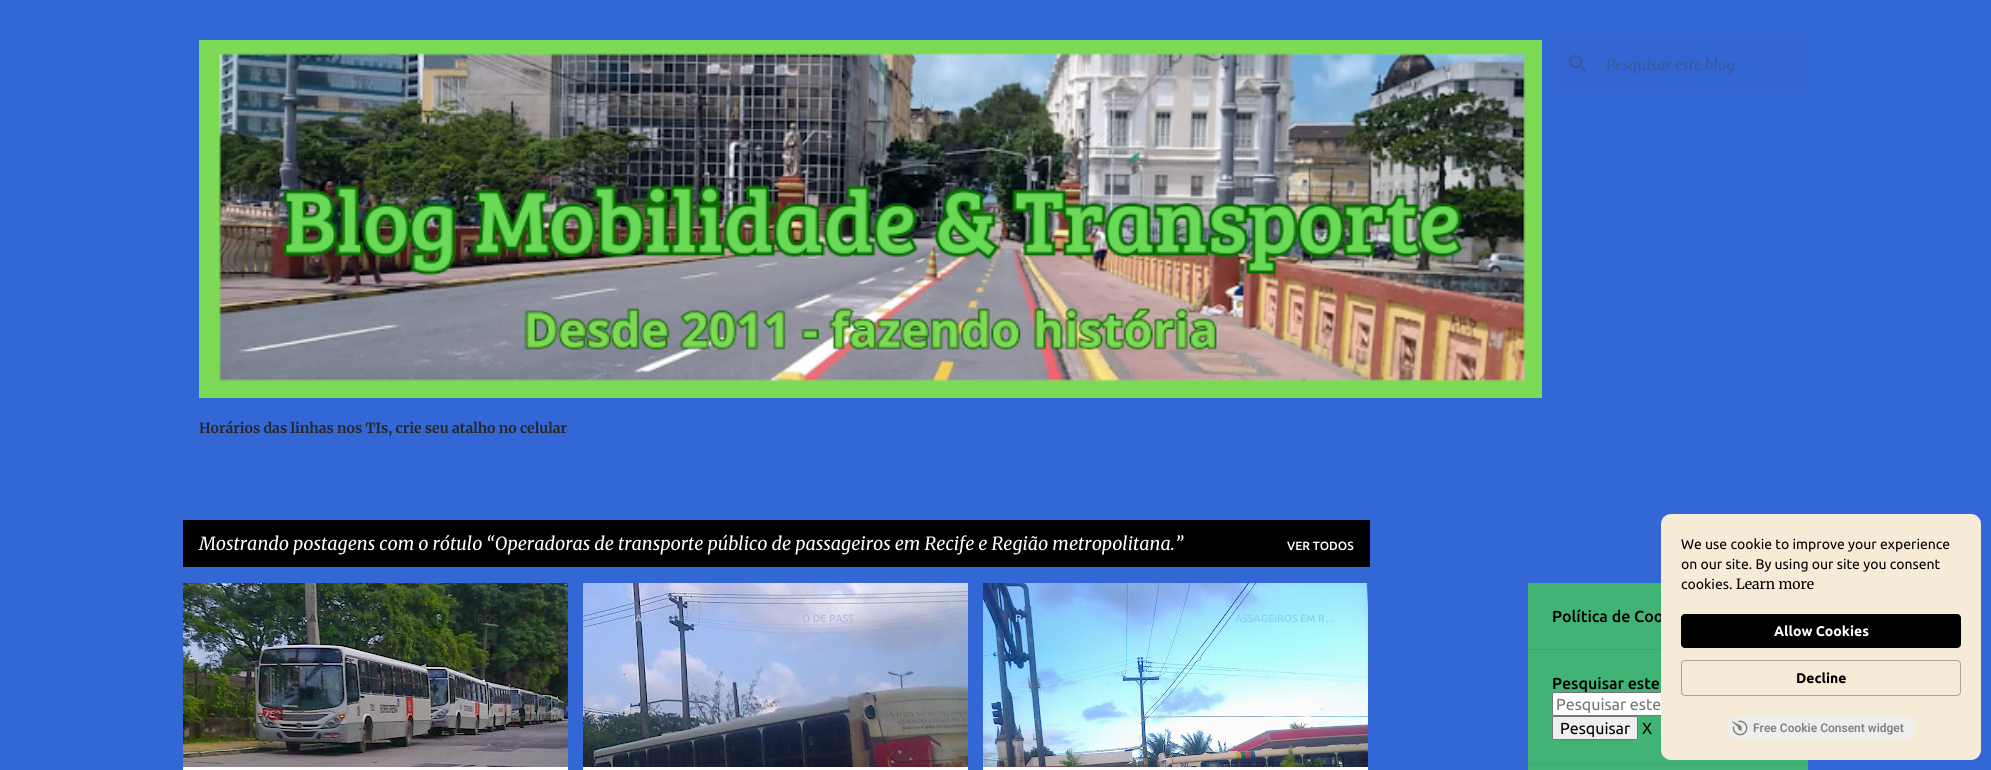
import math
import cairocffi as cairo

surface = cairo.ImageSurface(cairo.FORMAT_RGB24, 1991, 770)
ctx = cairo.Context(surface)
options = cairo.FontOptions()
options.set_hint_metrics(cairo.HINT_METRICS_OFF)
options.set_hint_style(cairo.HINT_STYLE_NONE)
ctx.set_font_options(options)
ctx.set_miter_limit(4)


def rgb(r, g, b):
    ctx.set_source_rgb(r / 255, g / 255, b / 255)


def face(family, size, italic, bold):
    ctx.select_font_face(family, cairo.FONT_SLANT_ITALIC if italic else cairo.FONT_SLANT_NORMAL, cairo.FONT_WEIGHT_BOLD if bold else cairo.FONT_WEIGHT_NORMAL)
    ctx.set_font_size(size)


def label(x, y, s):
    ctx.move_to(x, y)
    ctx.show_text(s)


def rect(x, y, w, h):
    ctx.rectangle(x, y, w, h)
    ctx.fill()


def rrect(x, y, w, h, r):
    ctx.new_sub_path()
    for i, (u, v) in enumerate([(x + w - r, y + h - r), (x + r, y + h - r), (x + r, y + r), (x + w - r, y + r)]):
        ctx.arc(u, v, r, i * math.pi / 2, (i + 1) * math.pi / 2)
    ctx.close_path()


def image(path, x, y, w, h):
    ctx.save()
    ctx.set_source_surface(cairo.ImageSurface.create_from_png(path), x, y)
    ctx.rectangle(x, y, w, h)
    ctx.fill()
    ctx.restore()


rgb(51, 103, 214)
ctx.paint()
rgb(51, 102, 210)
rect(1558, 40, 250, 48)
image('image0.png', 1569, 55, 18, 18)
face('Merriweather', 15, 1, 0)
rgb(56, 88, 155)
label(1606, 70, 'Pesquisar este blog')
image('image1.png', 199, 40, 1343, 358)
face('Merriweather', 14, 0, 1)
rgb(39, 39, 39)
label(199, 433, 'Horários das linhas nos TIs, crie seu atalho no celular')
rgb(0, 0, 0)
rect(183, 520, 1187, 47)
face('Merriweather', 18, 1, 0)
rgb(255, 255, 255)
label(199, 550, 'Mostrando postagens com o rótulo “Operadoras de transporte público de passageiros em Recife e Região metropolitana.”')
face('Ubuntu Medium', 12, 0, 0)
label(1287, 550, 'VER TODOS')
rgb(65, 179, 117)
rect(1528, 583, 280, 187)
face('Ubuntu Medium', 16, 0, 0)
rgb(0, 0, 0)
label(1552, 622, 'Política de Coo')
rgb(255, 255, 255)
rrect(1552.5, 692.5, 255, 23, 1.5)
ctx.fill_preserve()
rgb(118, 118, 118)
ctx.set_line_width(1)
ctx.stroke()
rgb(246, 235, 214)
rrect(1661, 514, 320, 246, 10)
ctx.fill()
face('Ubuntu', 14, 0, 0)
rgb(0, 0, 0)
label(1681, 549, 'We use cookie to improve your experience')
label(1681, 569, 'on our site. By using our site you consent')
label(1681, 589, 'cookies.')
face('Merriweather', 14, 0, 0)
label(1736, 589, 'Learn more')
rrect(1681, 614, 280, 34, 4)
ctx.fill()
face('Ubuntu', 14, 0, 1)
rgb(255, 255, 255)
label(1774, 636, 'Allow Cookies')
rrect(1681.5, 660.5, 279, 35, 3.5)
rgb(172, 165, 150)
ctx.stroke()
rgb(0, 0, 0)
label(1796, 683, 'Decline')
rgb(239, 238, 236)
rrect(1726, 716, 190, 24, 12)
ctx.fill()
image('image2.png', 1732, 720, 16, 16)
face('Roboto SemiBold', 12, 0, 0)
rgb(128, 128, 127)
label(1753, 732, 'Free Cookie Consent widget')
rgb(65, 165, 111)
rect(1528, 649, 133, 1)
face('Ubuntu Medium', 16, 0, 0)
rgb(0, 0, 0)
label(1552, 689, 'Pesquisar este')
face('Ubuntu', 16, 0, 0)
rgb(117, 117, 117)
label(1556, 710, 'Pesquisar este')
rgb(239, 239, 239)
rrect(1552.5, 716.5, 85, 23, 1.5)
ctx.fill_preserve()
rgb(118, 118, 118)
ctx.stroke()
rgb(0, 0, 0)
label(1560, 734, 'Pesquisar')
label(1642, 734, 'X')
rgb(65, 165, 111)
rect(1528, 764, 280, 1)
rgb(255, 255, 255)
rect(183, 767, 385, 3)
image('image3.png', 183, 583, 385, 184)
face('Ubuntu Medium', 10.5, 0, 0)
rgb(44, 61, 46)
label(309, 622, 'A')
label(474, 622, 'IROS')
rgb(255, 255, 255)
rect(583, 767, 385, 3)
image('image4.png', 583, 583, 385, 184)
rgb(175, 187, 222)
label(635, 622, 'A')
label(802, 622, 'O DE PASS')
rgb(255, 255, 255)
rect(983, 767, 385, 3)
image('image5.png', 983, 583, 385, 184)
rgb(142, 206, 243)
label(1015, 622, 'P')
label(1235, 622, 'ASSAGEIROS EM R…')
surface.write_to_png('render.png')
